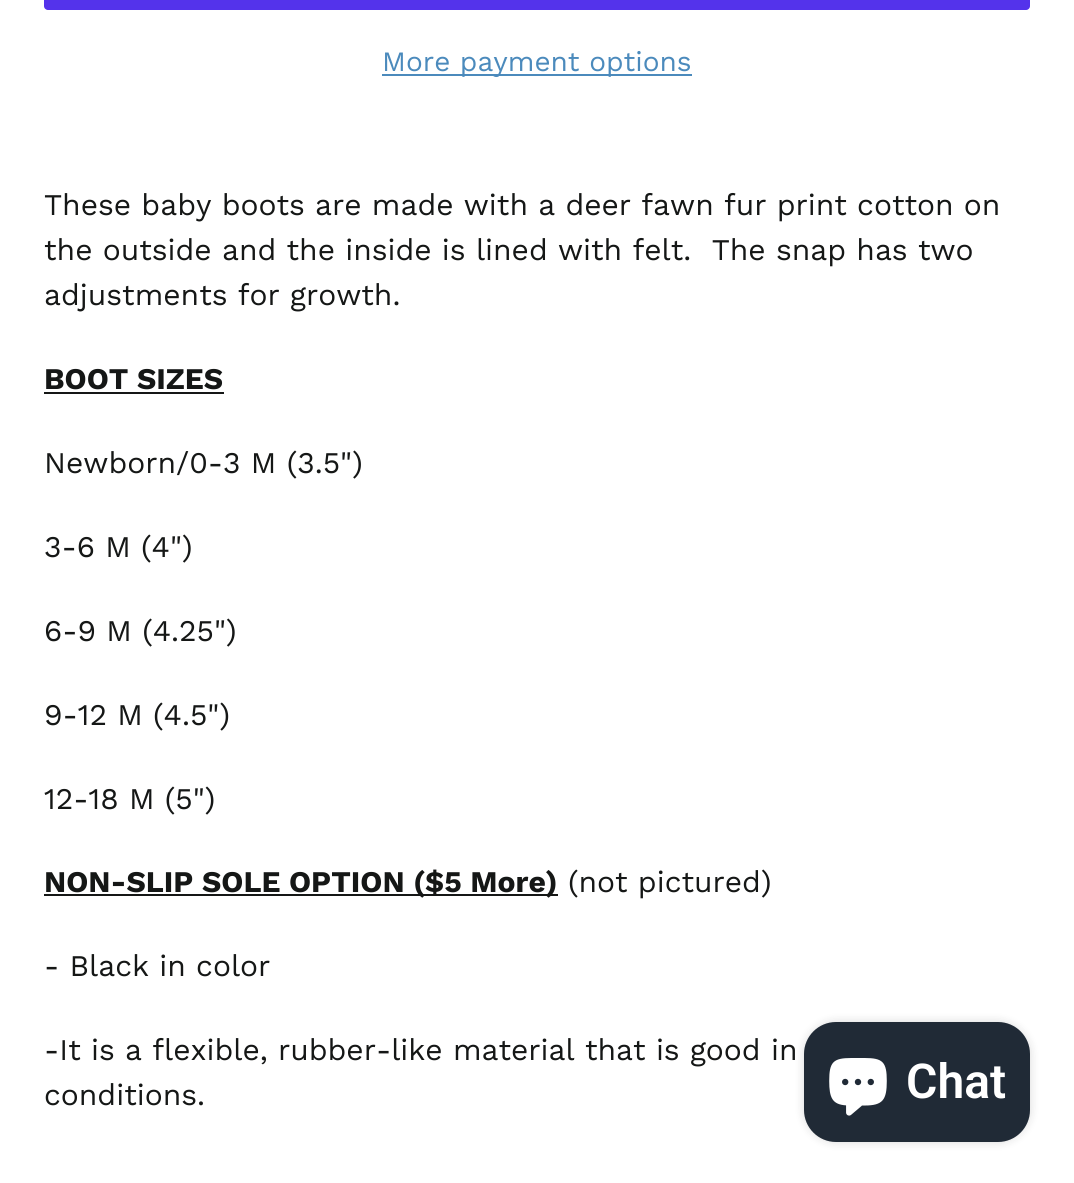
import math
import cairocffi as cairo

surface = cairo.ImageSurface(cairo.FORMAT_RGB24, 1074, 1183)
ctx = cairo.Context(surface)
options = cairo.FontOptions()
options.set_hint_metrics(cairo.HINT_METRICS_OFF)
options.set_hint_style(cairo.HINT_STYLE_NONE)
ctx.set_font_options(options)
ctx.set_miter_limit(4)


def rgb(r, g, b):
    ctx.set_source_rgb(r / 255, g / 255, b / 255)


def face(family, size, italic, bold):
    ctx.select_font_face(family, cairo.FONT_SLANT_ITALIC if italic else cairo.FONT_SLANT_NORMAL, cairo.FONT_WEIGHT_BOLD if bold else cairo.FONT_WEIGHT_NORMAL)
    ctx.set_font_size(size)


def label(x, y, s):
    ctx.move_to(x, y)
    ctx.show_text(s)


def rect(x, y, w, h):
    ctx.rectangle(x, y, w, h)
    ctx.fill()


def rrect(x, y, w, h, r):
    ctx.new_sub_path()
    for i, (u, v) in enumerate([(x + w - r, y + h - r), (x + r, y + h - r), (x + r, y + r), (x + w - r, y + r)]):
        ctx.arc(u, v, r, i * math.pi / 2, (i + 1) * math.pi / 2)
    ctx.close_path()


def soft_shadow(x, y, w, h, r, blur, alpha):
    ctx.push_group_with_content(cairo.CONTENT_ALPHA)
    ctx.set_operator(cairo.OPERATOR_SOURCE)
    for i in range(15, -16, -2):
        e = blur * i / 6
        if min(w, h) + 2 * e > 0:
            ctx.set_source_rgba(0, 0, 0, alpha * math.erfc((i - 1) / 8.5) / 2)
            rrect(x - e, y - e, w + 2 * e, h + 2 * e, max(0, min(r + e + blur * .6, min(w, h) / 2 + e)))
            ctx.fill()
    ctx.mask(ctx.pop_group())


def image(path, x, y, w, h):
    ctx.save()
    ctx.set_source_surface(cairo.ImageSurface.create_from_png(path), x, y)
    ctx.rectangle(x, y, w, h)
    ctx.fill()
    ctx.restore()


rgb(255, 255, 255)
ctx.paint()
rgb(84, 51, 235)
rrect(44, -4, 986, 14, 4)
ctx.fill()
rgb(75, 138, 188)
rect(382, 74, 310, 2)
face('Work Sans', 28, 0, 0)
label(382, 71, 'More payment options')
face('Work Sans', 30, 0, 0)
rgb(21, 23, 22)
label(44, 215, 'These baby boots are made with a deer fawn fur print cotton on')
label(44, 260, 'the outside and the inside is lined with felt.  The snap has two')
label(44, 305, 'adjustments for growth.')
face('Work Sans', 30, 0, 1)
label(44, 389, 'BOOT SIZES')
rect(44, 392, 180, 2)
face('Work Sans', 30, 0, 0)
label(44, 473, 'Newborn/0-3 M (3.5")')
label(44, 557, '3-6 M (4")')
label(44, 641, '6-9 M (4.25")')
label(44, 725, '9-12 M (4.5")')
label(44, 809, '12-18 M (5")')
rect(44, 894, 514, 2)
face('Work Sans', 30, 0, 1)
label(44, 892, 'NON-SLIP SOLE OPTION ($5 More)')
face('Work Sans', 30, 0, 0)
label(568, 892, '(not pictured)')
label(44, 976, '- Black in color')
label(44, 1060, '-It is a flexible, rubber-like material that is good in')
label(44, 1105, 'conditions.')
rgb(0, 0, 0)
soft_shadow(804, 1022, 226, 120, 32, 5, 0.15)
rgb(32, 42, 54)
rrect(804, 1022, 226, 120, 32)
ctx.fill()
image('image0.png', 829, 1058, 58, 58)
face('Roboto SemiBold', 48, 0, 0)
rgb(255, 255, 255)
label(906, 1098, 'Chat')
surface.write_to_png('render.png')
